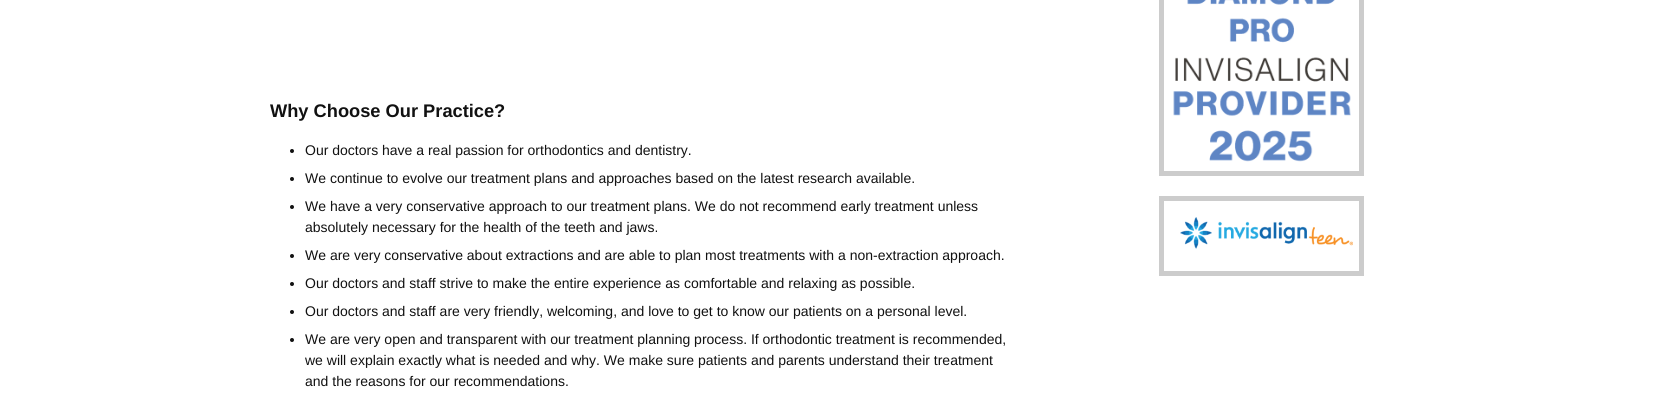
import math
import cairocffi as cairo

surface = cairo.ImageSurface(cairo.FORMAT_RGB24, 1680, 408)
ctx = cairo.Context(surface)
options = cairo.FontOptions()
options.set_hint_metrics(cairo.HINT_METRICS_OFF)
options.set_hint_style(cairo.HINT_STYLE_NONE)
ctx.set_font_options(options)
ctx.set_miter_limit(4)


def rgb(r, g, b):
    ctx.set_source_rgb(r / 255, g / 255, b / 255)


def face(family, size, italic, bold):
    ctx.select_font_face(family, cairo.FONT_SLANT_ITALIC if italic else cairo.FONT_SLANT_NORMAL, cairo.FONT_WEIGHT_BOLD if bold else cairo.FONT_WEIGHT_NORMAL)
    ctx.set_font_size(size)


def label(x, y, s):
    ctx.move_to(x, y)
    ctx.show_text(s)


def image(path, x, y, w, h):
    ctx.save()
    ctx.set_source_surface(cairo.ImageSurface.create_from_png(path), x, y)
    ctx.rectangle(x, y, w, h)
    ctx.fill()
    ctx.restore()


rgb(255, 255, 255)
ctx.paint()
face('Liberation Sans', 18.25, 0, 1)
rgb(17, 17, 17)
label(270, 117, 'Why Choose Our Practice?')
ctx.new_path()
ctx.arc(292, 151, 2, 0, 2 * math.pi)
ctx.fill()
face('Liberation Sans', 14, 0, 0)
label(305, 155, 'Our doctors have a real passion for orthodontics and dentistry.')
ctx.new_path()
ctx.arc(292, 179, 2, 0, 2 * math.pi)
ctx.fill()
label(305, 183, 'We continue to evolve our treatment plans and approaches based on the latest research available.')
ctx.new_path()
ctx.arc(292, 207, 2, 0, 2 * math.pi)
ctx.fill()
label(305, 211, 'We have a very conservative approach to our treatment plans. We do not recommend early treatment unless')
label(305, 232, 'absolutely necessary for the health of the teeth and jaws.')
ctx.new_path()
ctx.arc(292, 256, 2, 0, 2 * math.pi)
ctx.fill()
label(305, 260, 'We are very conservative about extractions and are able to plan most treatments with a non-extraction approach.')
ctx.new_path()
ctx.arc(292, 284, 2, 0, 2 * math.pi)
ctx.fill()
label(305, 288, 'Our doctors and staff strive to make the entire experience as comfortable and relaxing as possible.')
ctx.new_path()
ctx.arc(292, 312, 2, 0, 2 * math.pi)
ctx.fill()
label(305, 316, 'Our doctors and staff are very friendly, welcoming, and love to get to know our patients on a personal level.')
ctx.new_path()
ctx.arc(292, 340, 2, 0, 2 * math.pi)
ctx.fill()
label(305, 344, 'We are very open and transparent with our treatment planning process. If orthodontic treatment is recommended,')
label(305, 365, 'we will explain exactly what is needed and why. We make sure patients and parents understand their treatment')
label(305, 386, 'and the reasons for our recommendations.')
ctx.rectangle(1161.5, -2.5, 200, 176)
rgb(204, 204, 204)
ctx.set_line_width(5)
ctx.stroke()
image('image0.png', 1173, 0, 178, 162)
ctx.rectangle(1161.5, 198.5, 200, 75)
ctx.stroke()
image('image1.png', 1180, 217, 173, 32)
surface.write_to_png('render.png')
